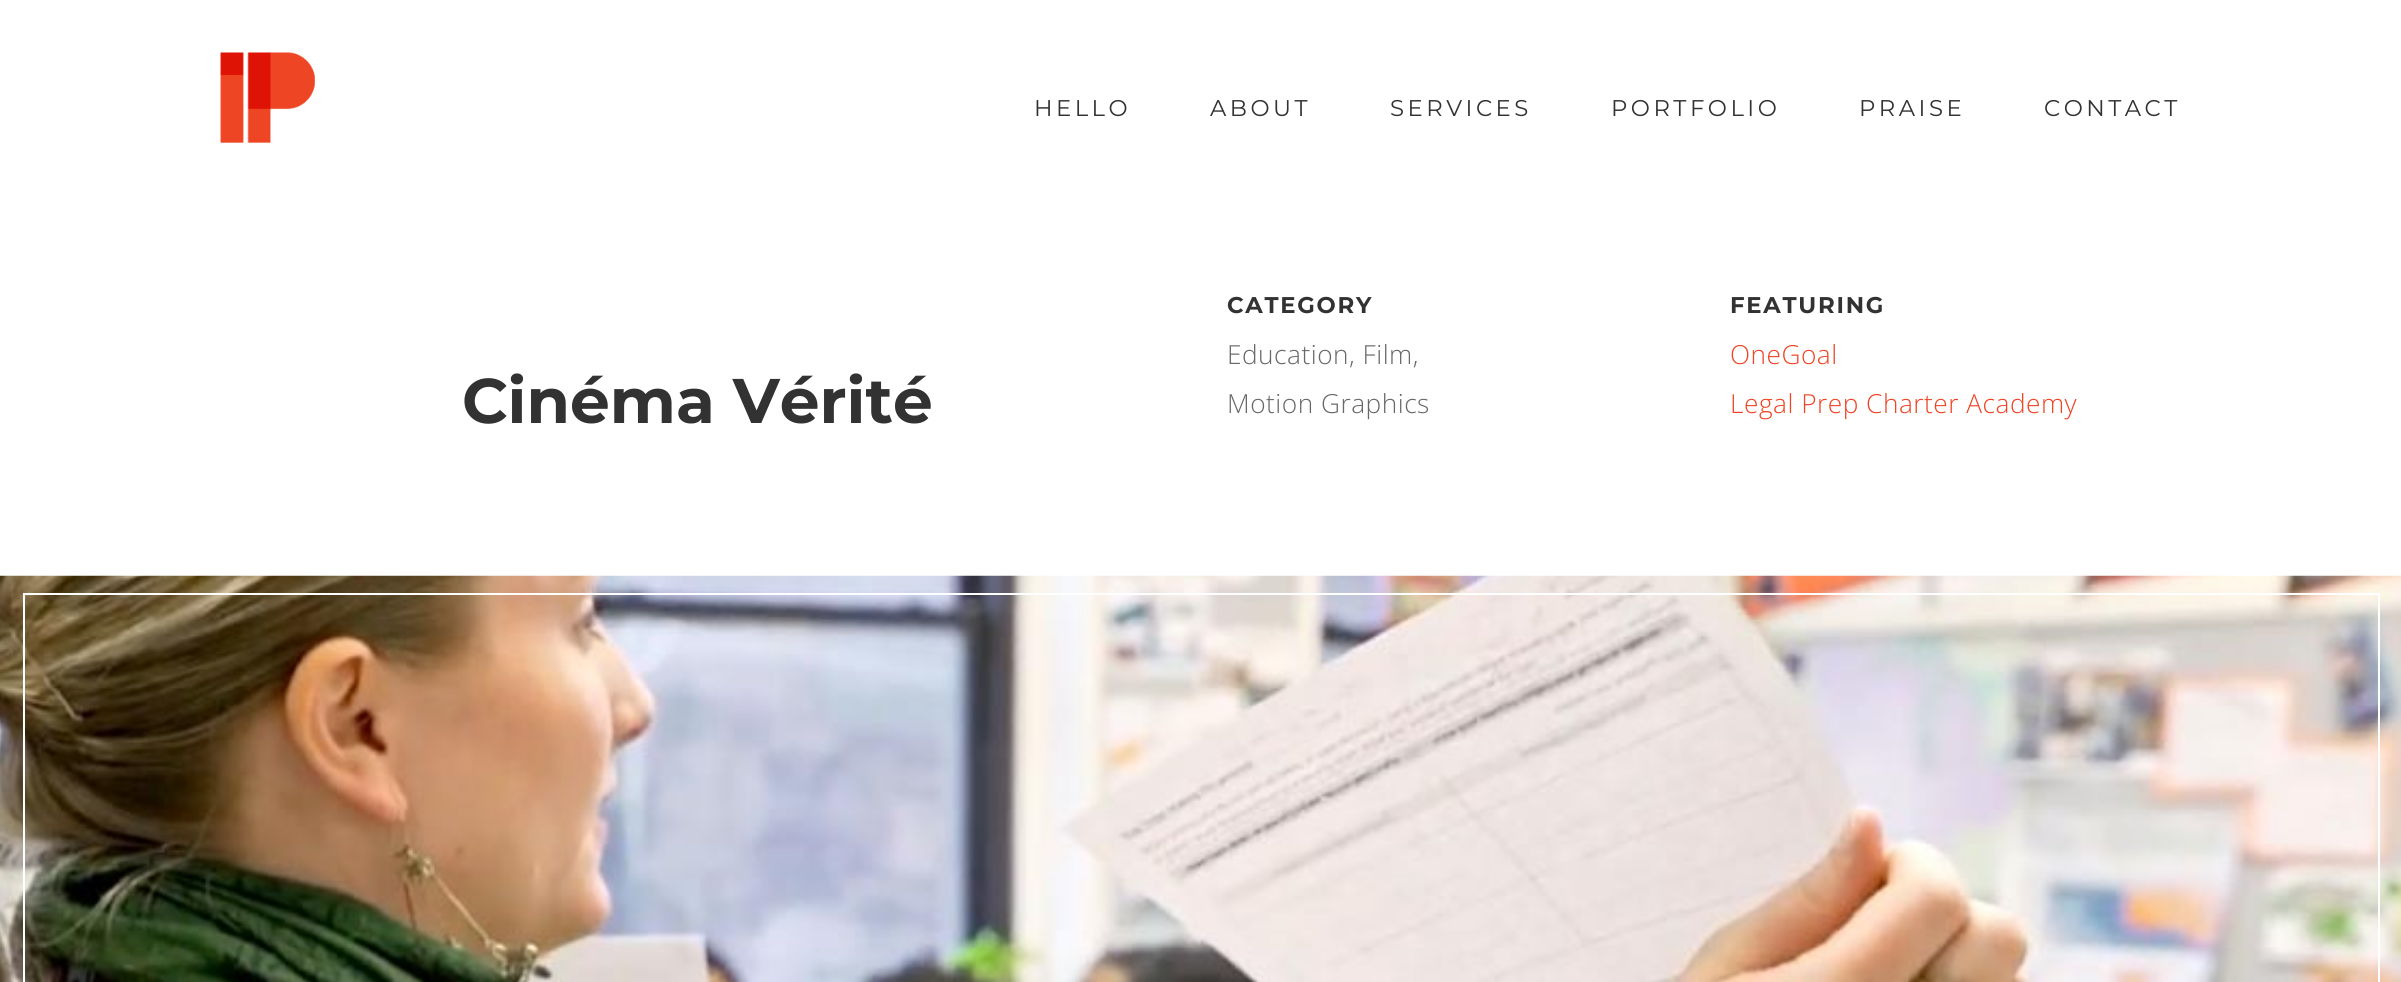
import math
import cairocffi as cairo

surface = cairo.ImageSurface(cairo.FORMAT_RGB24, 2401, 982)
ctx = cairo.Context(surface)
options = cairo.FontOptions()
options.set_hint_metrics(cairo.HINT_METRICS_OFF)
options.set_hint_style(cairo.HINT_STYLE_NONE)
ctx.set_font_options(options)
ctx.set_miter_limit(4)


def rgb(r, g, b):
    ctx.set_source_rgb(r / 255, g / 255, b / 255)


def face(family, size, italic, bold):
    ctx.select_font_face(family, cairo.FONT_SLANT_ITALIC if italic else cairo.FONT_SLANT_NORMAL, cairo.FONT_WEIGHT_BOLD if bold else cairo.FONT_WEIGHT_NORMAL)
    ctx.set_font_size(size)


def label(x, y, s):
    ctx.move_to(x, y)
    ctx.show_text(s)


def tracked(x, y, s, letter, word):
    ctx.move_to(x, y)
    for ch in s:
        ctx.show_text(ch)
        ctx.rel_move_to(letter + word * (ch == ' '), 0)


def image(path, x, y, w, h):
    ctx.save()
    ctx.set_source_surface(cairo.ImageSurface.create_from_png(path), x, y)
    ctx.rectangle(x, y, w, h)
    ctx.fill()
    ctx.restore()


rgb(255, 255, 255)
ctx.paint()
image('image0.png', 220, 52, 95, 91)
face('Montserrat', 22.75, 0, 0)
rgb(50, 50, 50)
tracked(1034, 116, 'HELLO', 3.5, 0)
tracked(1210, 116, 'ABOUT', 3.5, 0)
tracked(1390, 116, 'SERVICES', 3.5, 0)
tracked(1611, 116, 'PORTFOLIO', 3.5, 0)
tracked(1859, 116, 'PRAISE', 3.5, 0)
tracked(2044, 116, 'CONTACT', 3.5, 0)
face('Montserrat', 63, 0, 1)
label(462, 423, 'Cinéma Vérité')
face('Montserrat', 22.75, 0, 1)
tracked(1227, 313, 'CATEGORY', 1.75, 0)
face('Open Sans Light', 26.25, 0, 0)
rgb(104, 104, 104)
tracked(1227, 364, 'Education, Film,', 0.5, 0)
tracked(1227, 413, 'Motion Graphics', 0.5, 0)
face('Montserrat', 22.75, 0, 1)
rgb(50, 50, 50)
tracked(1730, 313, 'FEATURING', 1.75, 0)
face('Open Sans Light', 26.25, 0, 0)
rgb(239, 68, 37)
tracked(1730, 364, 'OneGoal', 0.5, 0)
tracked(1730, 413, 'Legal Prep Charter Academy', 0.5, 0)
image('image1.png', 0, 575, 2401, 407)
ctx.rectangle(24, 594, 2355, 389)
rgb(255, 255, 255)
ctx.stroke()
surface.write_to_png('render.png')
